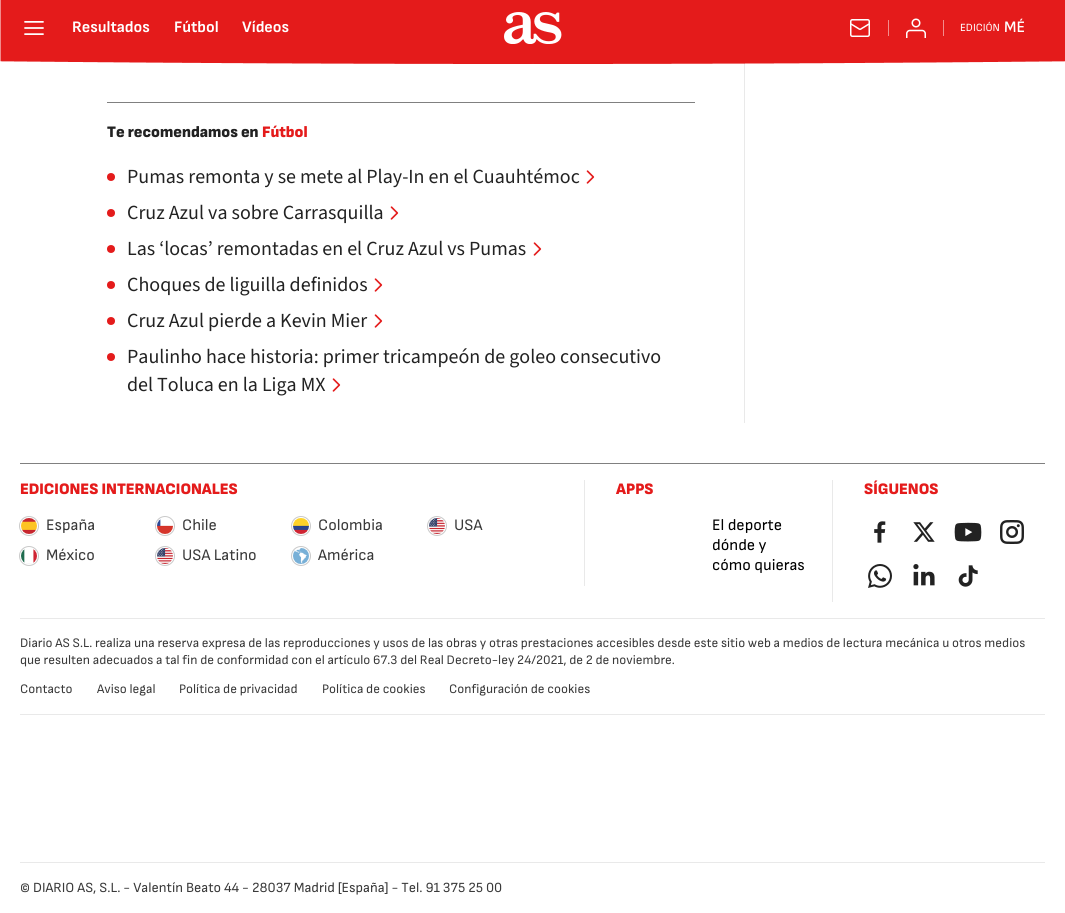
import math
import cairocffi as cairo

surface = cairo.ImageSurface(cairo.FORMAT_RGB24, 1065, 913)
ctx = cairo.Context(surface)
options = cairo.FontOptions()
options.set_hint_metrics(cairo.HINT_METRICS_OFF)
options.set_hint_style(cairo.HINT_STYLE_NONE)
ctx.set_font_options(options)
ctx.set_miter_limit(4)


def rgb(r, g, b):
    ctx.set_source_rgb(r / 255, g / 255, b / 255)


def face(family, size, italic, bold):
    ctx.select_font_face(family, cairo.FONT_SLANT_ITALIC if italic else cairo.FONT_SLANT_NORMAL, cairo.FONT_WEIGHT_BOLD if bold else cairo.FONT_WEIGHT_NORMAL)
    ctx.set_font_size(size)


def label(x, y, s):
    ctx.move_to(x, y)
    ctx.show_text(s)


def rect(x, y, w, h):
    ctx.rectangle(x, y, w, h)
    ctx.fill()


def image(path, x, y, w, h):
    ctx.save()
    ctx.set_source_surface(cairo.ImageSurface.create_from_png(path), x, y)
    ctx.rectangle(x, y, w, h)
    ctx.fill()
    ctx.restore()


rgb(255, 255, 255)
ctx.paint()
rgb(233, 233, 233)
rect(744, 63, 1, 360)
image('image0.png', 0, 0, 1065, 64)
image('image1.png', 24, 21, 20, 14)
face('Sofia Sans', 16, 0, 1)
rgb(255, 255, 255)
label(72, 32, 'Resultados')
label(174, 32, 'Fútbol')
label(242, 32, 'Vídeos')
image('image2.png', 504, 12, 58, 32)
image('image3.png', 850, 19, 20, 18)
rgb(242, 141, 141)
rect(888, 20, 1, 16)
image('image4.png', 906, 18, 20, 20)
rect(943, 20, 1, 16)
face('Sofia Sans', 11, 0, 0)
rgb(255, 255, 255)
label(960, 31, 'EDICIÓN')
face('Sofia Sans SemiBold', 16, 0, 0)
label(1004, 32, 'MÉ')
rgb(128, 128, 128)
rect(107, 102, 588, 1)
face('Sofia Sans Black', 16, 0, 0)
rgb(34, 34, 34)
label(107, 137, 'Te recomendamos en')
rgb(228, 27, 27)
label(262, 137, 'Fútbol')
ctx.new_path()
ctx.arc(111, 177, 4, 0, 2 * math.pi)
ctx.fill()
face('Source Sans 3 ExtraLight', 20, 0, 0)
rgb(34, 34, 34)
label(127, 183, 'Pumas remonta y se mete al Play-In en el Cuauhtémoc')
image('image5.png', 586, 170, 9, 14)
rgb(228, 27, 27)
ctx.arc(111, 213, 4, 0, 2 * math.pi)
ctx.fill()
rgb(34, 34, 34)
label(127, 219, 'Cruz Azul va sobre Carrasquilla')
image('image5.png', 390, 206, 9, 14)
rgb(228, 27, 27)
ctx.arc(111, 249, 4, 0, 2 * math.pi)
ctx.fill()
rgb(34, 34, 34)
label(127, 255, 'Las ‘locas’ remontadas en el Cruz Azul vs Pumas')
image('image5.png', 533, 242, 9, 14)
rgb(228, 27, 27)
ctx.arc(111, 285, 4, 0, 2 * math.pi)
ctx.fill()
rgb(34, 34, 34)
label(127, 291, 'Choques de liguilla definidos')
image('image5.png', 374, 278, 9, 14)
rgb(228, 27, 27)
ctx.arc(111, 321, 4, 0, 2 * math.pi)
ctx.fill()
rgb(34, 34, 34)
label(127, 327, 'Cruz Azul pierde a Kevin Mier')
image('image5.png', 374, 314, 9, 14)
rgb(228, 27, 27)
ctx.arc(111, 357, 4, 0, 2 * math.pi)
ctx.fill()
rgb(34, 34, 34)
label(127, 363, 'Paulinho hace historia: primer tricampeón de goleo consecutivo')
label(127, 391, 'del Toluca en la Liga MX')
image('image5.png', 332, 378, 9, 14)
rgb(128, 128, 128)
rect(20, 463, 1025, 1)
face('Sofia Sans Black', 16, 0, 0)
rgb(228, 27, 27)
label(20, 494, 'EDICIONES INTERNACIONALES')
ctx.new_path()
ctx.arc(29, 526, 9.5, 0, 2 * math.pi)
rgb(201, 201, 201)
ctx.set_line_width(1)
ctx.stroke()
image('image6.png', 21, 518, 16, 16)
face('Sofia Sans', 16, 0, 0)
rgb(58, 58, 58)
label(46, 530, 'España')
ctx.new_path()
ctx.arc(165, 526, 9.5, 0, 2 * math.pi)
rgb(201, 201, 201)
ctx.stroke()
image('image7.png', 157, 519, 16, 15)
rgb(58, 58, 58)
label(182, 530, 'Chile')
ctx.new_path()
ctx.arc(301, 526, 9.5, 0, 2 * math.pi)
rgb(201, 201, 201)
ctx.stroke()
image('image8.png', 293, 518, 16, 16)
rgb(58, 58, 58)
label(318, 530, 'Colombia')
ctx.new_path()
ctx.arc(437, 526, 9.5, 0, 2 * math.pi)
rgb(201, 201, 201)
ctx.stroke()
image('image9.png', 429, 518, 16, 16)
rgb(58, 58, 58)
label(454, 530, 'USA')
ctx.new_path()
ctx.arc(29, 556, 9.5, 0, 2 * math.pi)
rgb(201, 201, 201)
ctx.stroke()
image('image10.png', 21, 549, 16, 15)
rgb(58, 58, 58)
label(46, 560, 'México')
ctx.new_path()
ctx.arc(165, 556, 9.5, 0, 2 * math.pi)
rgb(201, 201, 201)
ctx.stroke()
image('image11.png', 157, 548, 16, 16)
rgb(58, 58, 58)
label(182, 560, 'USA Latino')
ctx.new_path()
ctx.arc(301, 556, 9.5, 0, 2 * math.pi)
rgb(201, 201, 201)
ctx.stroke()
image('image12.png', 293, 548, 16, 16)
rgb(58, 58, 58)
label(318, 560, 'América')
rgb(233, 233, 233)
rect(584, 480, 1, 106)
face('Sofia Sans Black', 16, 0, 0)
rgb(228, 27, 27)
label(616, 494, 'APPS')
face('Sofia Sans', 16, 0, 0)
rgb(0, 0, 0)
label(712, 530, 'El deporte')
label(712, 550, 'dónde y')
label(712, 570, 'cómo quieras')
rgb(233, 233, 233)
rect(832, 480, 1, 122)
face('Sofia Sans Black', 16, 0, 0)
rgb(228, 27, 27)
label(864, 494, 'SÍGUENOS')
image('image13.png', 874, 521, 12, 22)
image('image14.png', 913, 522, 22, 20)
image('image15.png', 954, 522, 28, 20)
image('image16.png', 1000, 520, 24, 24)
image('image17.png', 868, 564, 24, 24)
image('image18.png', 913, 564, 22, 22)
image('image19.png', 958, 565, 20, 22)
rgb(233, 233, 233)
rect(20, 618, 1025, 1)
face('Sofia Sans', 13, 0, 0)
rgb(58, 58, 58)
label(20, 647, 'Diario AS S.L. realiza una reserva expresa de las reproducciones y usos de las obras y otras prestaciones accesibles desde este sitio web a medios de lectura mecánica u otros medios')
label(20, 664, 'que resulten adecuados a tal fin de conformidad con el artículo 67.3 del Real Decreto-ley 24/2021, de 2 de noviembre.')
label(20, 693, 'Contacto')
label(97, 693, 'Aviso legal')
label(179, 693, 'Política de privacidad')
label(322, 693, 'Política de cookies')
label(449, 693, 'Configuración de cookies')
rgb(233, 233, 233)
rect(20, 714, 1025, 1)
rect(20, 862, 1025, 1)
face('Sofia Sans', 14, 0, 0)
rgb(58, 58, 58)
label(20, 892, '© DIARIO AS, S.L. - Valentín Beato 44 - 28037 Madrid [España] - Tel. 91 375 25 00')
surface.write_to_png('render.png')
